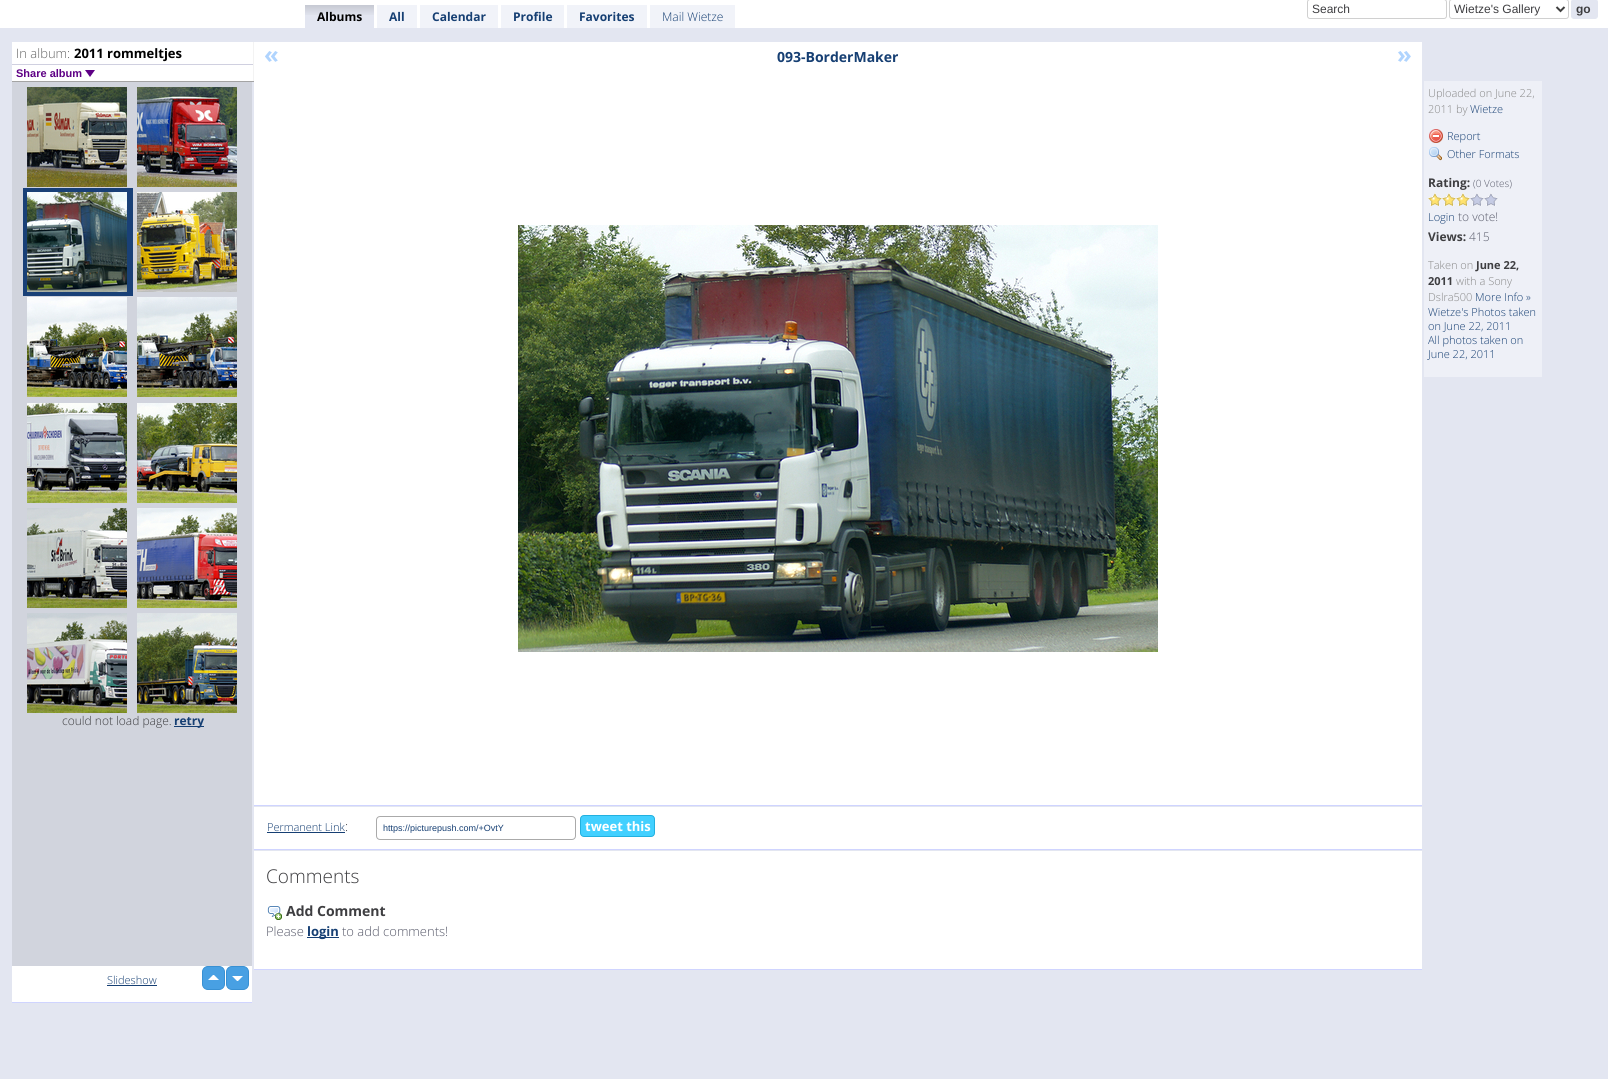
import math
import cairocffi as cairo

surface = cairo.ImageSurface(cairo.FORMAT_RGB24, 1608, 1082)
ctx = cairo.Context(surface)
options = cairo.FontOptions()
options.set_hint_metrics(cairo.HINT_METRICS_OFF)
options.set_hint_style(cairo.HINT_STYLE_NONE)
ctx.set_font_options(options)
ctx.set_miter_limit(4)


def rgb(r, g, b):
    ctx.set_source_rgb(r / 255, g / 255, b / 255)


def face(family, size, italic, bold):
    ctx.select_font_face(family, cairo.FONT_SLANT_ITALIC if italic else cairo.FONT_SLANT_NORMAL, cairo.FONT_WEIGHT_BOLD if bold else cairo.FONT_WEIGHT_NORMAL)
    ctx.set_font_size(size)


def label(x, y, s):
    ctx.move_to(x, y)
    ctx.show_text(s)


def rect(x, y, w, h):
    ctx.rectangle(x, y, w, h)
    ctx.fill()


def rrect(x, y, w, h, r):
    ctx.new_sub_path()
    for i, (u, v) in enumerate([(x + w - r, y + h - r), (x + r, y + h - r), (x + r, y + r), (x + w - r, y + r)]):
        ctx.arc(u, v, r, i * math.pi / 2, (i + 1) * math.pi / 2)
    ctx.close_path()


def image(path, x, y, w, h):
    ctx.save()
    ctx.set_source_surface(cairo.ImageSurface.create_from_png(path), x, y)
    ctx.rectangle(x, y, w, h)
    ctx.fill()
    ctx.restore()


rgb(227, 230, 241)
ctx.paint()
rgb(255, 255, 255)
rect(0, 0, 1608, 28)
rgb(227, 230, 241)
rect(305, 5, 69, 23)
image('image0.png', 305, 5, 69, 10)
face('Open Sans', 12, 0, 1)
rgb(0, 0, 0)
label(317, 21, 'Albums')
rgb(241, 243, 249)
rect(377, 5, 40, 23)
rgb(22, 63, 115)
label(389, 21, 'All')
rgb(241, 243, 249)
rect(420, 5, 78, 23)
rgb(22, 63, 115)
label(432, 21, 'Calendar')
rgb(241, 243, 249)
rect(501, 5, 63, 23)
rgb(22, 63, 115)
label(513, 21, 'Profile')
rgb(241, 243, 249)
rect(567, 5, 80, 23)
rgb(22, 63, 115)
label(579, 21, 'Favorites')
rgb(241, 243, 249)
rect(650, 5, 85, 23)
face('Open Sans Light', 12, 0, 0)
rgb(22, 63, 115)
label(662, 21, 'Mail Wietze')
rrect(1307.5, -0.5, 139, 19, 2.5)
rgb(208, 208, 208)
ctx.set_line_width(1)
ctx.stroke()
face('Liberation Sans', 12, 0, 0)
rgb(62, 62, 65)
label(1312, 13, 'Search')
rrect(1449.5, -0.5, 119, 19, 2.5)
rgb(208, 208, 208)
ctx.stroke()
ctx.new_path()
ctx.move_to(1556.5, 7)
ctx.line_to(1560.5, 11)
ctx.line_to(1564.5, 7)
rgb(62, 62, 62)
ctx.set_line_width(2)
ctx.stroke()
rgb(62, 62, 65)
label(1454, 13, 'Wietze\'s Gallery')
rgb(227, 230, 241)
rrect(1571.5, -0.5, 26, 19, 2.5)
ctx.fill_preserve()
ctx.set_line_width(1)
ctx.stroke()
face('Liberation Sans', 12, 0, 1)
rgb(62, 62, 65)
label(1576, 13, 'go')
rgb(255, 255, 255)
rect(12, 42, 241, 39)
rgb(243, 243, 243)
rect(253, 42, 1, 40)
rgb(164, 164, 164)
rect(12, 81, 242, 1)
face('Open Sans Light', 13, 0, 0)
rgb(102, 102, 102)
label(16, 58, 'In album:')
face('Open Sans', 13, 0, 1)
rgb(0, 0, 0)
label(74, 58, '2011 rommeltjes')
rgb(208, 208, 224)
rect(12, 64, 241, 1)
face('Liberation Sans', 11, 0, 1)
rgb(94, 0, 133)
label(16, 77, 'Share album')
ctx.new_path()
ctx.move_to(85, 70)
ctx.line_to(95, 70)
ctx.line_to(90, 77)
ctx.close_path()
ctx.fill()
rgb(209, 212, 221)
rect(12, 82, 240, 884)
rgb(207, 212, 255)
rect(12, 1002, 240, 1)
image('image1.png', 27, 87, 100, 100)
image('image2.png', 137, 87, 100, 100)
rgb(25, 64, 119)
rect(23, 188, 110, 108)
image('image3.png', 27, 192, 100, 100)
image('image4.png', 137, 192, 100, 100)
image('image5.png', 27, 297, 100, 100)
image('image6.png', 137, 297, 100, 100)
image('image7.png', 27, 403, 100, 100)
image('image8.png', 137, 403, 100, 100)
image('image9.png', 27, 508, 100, 100)
image('image10.png', 137, 508, 100, 100)
image('image11.png', 27, 613, 100, 100)
image('image12.png', 137, 613, 100, 100)
face('Open Sans Light', 12, 0, 0)
rgb(62, 62, 65)
label(62, 725, 'could not load page.')
rgb(22, 63, 115)
rect(174, 726, 30, 1)
face('Open Sans', 12, 0, 1)
label(174, 725, 'retry')
rgb(255, 255, 255)
rect(12, 966, 240, 36)
rgb(72, 160, 227)
rrect(202.5, 966.5, 22, 23, 5.5)
ctx.fill_preserve()
rgb(56, 144, 211)
ctx.stroke()
rgb(72, 160, 227)
rrect(226.5, 966.5, 22, 23, 5.5)
ctx.fill_preserve()
rgb(56, 144, 211)
ctx.stroke()
rgb(255, 255, 255)
ctx.new_path()
ctx.move_to(219, 980)
ctx.line_to(208, 980)
ctx.line_to(213, 975)
ctx.line_to(214, 975)
ctx.close_path()
ctx.move_to(232, 976)
ctx.line_to(243, 976)
ctx.line_to(238, 981)
ctx.line_to(237, 981)
ctx.close_path()
ctx.fill()
face('Open Sans Light', 11, 0, 0)
rgb(22, 63, 115)
label(107, 984, 'Slideshow')
rect(107, 985, 50, 1)
rgb(255, 255, 255)
rect(254, 42, 1168, 763)
rgb(207, 212, 255)
rect(254, 805, 1168, 1)
face('Open Sans', 24, 0, 1)
rgb(176, 212, 254)
label(264, 63, '«')
face('Open Sans', 14, 0, 1)
rgb(22, 63, 115)
label(777, 62, '093-BorderMaker')
face('Open Sans', 24, 0, 1)
rgb(176, 212, 254)
label(1397, 63, '»')
image('image13.png', 518, 225, 640, 427)
rgb(238, 240, 247)
rect(1424, 81, 118, 296)
face('Open Sans Light', 11, 0, 0)
rgb(136, 136, 136)
label(1428, 97, 'Uploaded on June 22,')
label(1428, 113, '2011 by')
rgb(22, 63, 115)
label(1470, 113, 'Wietze')
image('image14.png', 1429, 129, 14, 14)
label(1447, 140, 'Report')
image('image15.png', 1429, 147, 13, 14)
label(1447, 158, 'Other Formats')
face('Open Sans', 12, 0, 1)
rgb(62, 62, 65)
label(1428, 187, 'Rating:')
face('Open Sans Light', 10, 0, 0)
rgb(90, 92, 108)
label(1473, 187, '(0 Votes)')
image('image16.png', 1428, 193, 14, 13)
image('image16.png', 1442, 193, 14, 13)
image('image16.png', 1456, 193, 14, 13)
image('image17.png', 1470, 193, 14, 13)
image('image17.png', 1484, 193, 14, 13)
face('Open Sans Light', 11, 0, 0)
rgb(22, 63, 115)
label(1428, 221, 'Login')
face('Open Sans Light', 12, 0, 0)
rgb(90, 92, 108)
label(1458, 221, 'to vote!')
face('Open Sans', 12, 0, 1)
rgb(62, 62, 65)
label(1428, 241, 'Views:')
face('Open Sans Light', 12, 0, 0)
rgb(90, 92, 108)
label(1469, 241, '415')
face('Open Sans Light', 11, 0, 0)
rgb(136, 136, 136)
label(1428, 269, 'Taken on')
face('Open Sans', 11, 0, 1)
rgb(62, 62, 65)
label(1476, 269, 'June 22,')
label(1428, 285, '2011')
face('Open Sans Light', 11, 0, 0)
rgb(136, 136, 136)
label(1456, 285, 'with a Sony')
label(1428, 301, 'Dslra500')
rgb(22, 63, 115)
label(1475, 301, 'More Info »')
label(1428, 316, 'Wietze\'s Photos taken')
label(1428, 330, 'on June 22, 2011')
label(1428, 344, 'All photos taken on')
label(1428, 358, 'June 22, 2011')
rgb(255, 255, 255)
rect(254, 807, 1168, 42)
rgb(207, 212, 255)
rect(254, 849, 1168, 1)
rgb(22, 63, 115)
label(267, 831, 'Permanent Link')
rect(267, 832, 78, 1)
face('Open Sans Light', 13, 0, 0)
rgb(62, 62, 65)
label(345, 831, ':')
rrect(376.5, 816.5, 199, 23, 3.5)
rgb(170, 170, 170)
ctx.stroke()
face('Liberation Sans', 9, 0, 0)
rgb(22, 63, 115)
label(383, 831, 'https://picturepush.com/+OvtY')
rgb(66, 208, 255)
rrect(580.5, 815.5, 74, 21, 3.5)
ctx.fill_preserve()
rgb(34, 176, 223)
ctx.stroke()
face('Open Sans', 13, 0, 1)
rgb(255, 255, 255)
label(585, 831, 'tweet this')
rect(254, 851, 1168, 118)
rgb(207, 212, 255)
rect(254, 969, 1168, 1)
face('Open Sans Light', 19, 0, 0)
rgb(62, 62, 65)
label(266, 883, 'Comments')
image('image18.png', 267, 906, 15, 14)
face('Open Sans', 14, 0, 1)
label(286, 916, 'Add Comment')
face('Open Sans Light', 13, 0, 0)
rgb(90, 92, 108)
label(266, 936, 'Please')
rgb(22, 63, 115)
rect(307, 937, 32, 1)
face('Open Sans', 13, 0, 1)
label(307, 936, 'login')
face('Open Sans Light', 13, 0, 0)
rgb(90, 92, 108)
label(342, 936, 'to add comments!')
rgb(255, 255, 255)
rect(0, 1079, 1608, 3)
surface.write_to_png('render.png')
